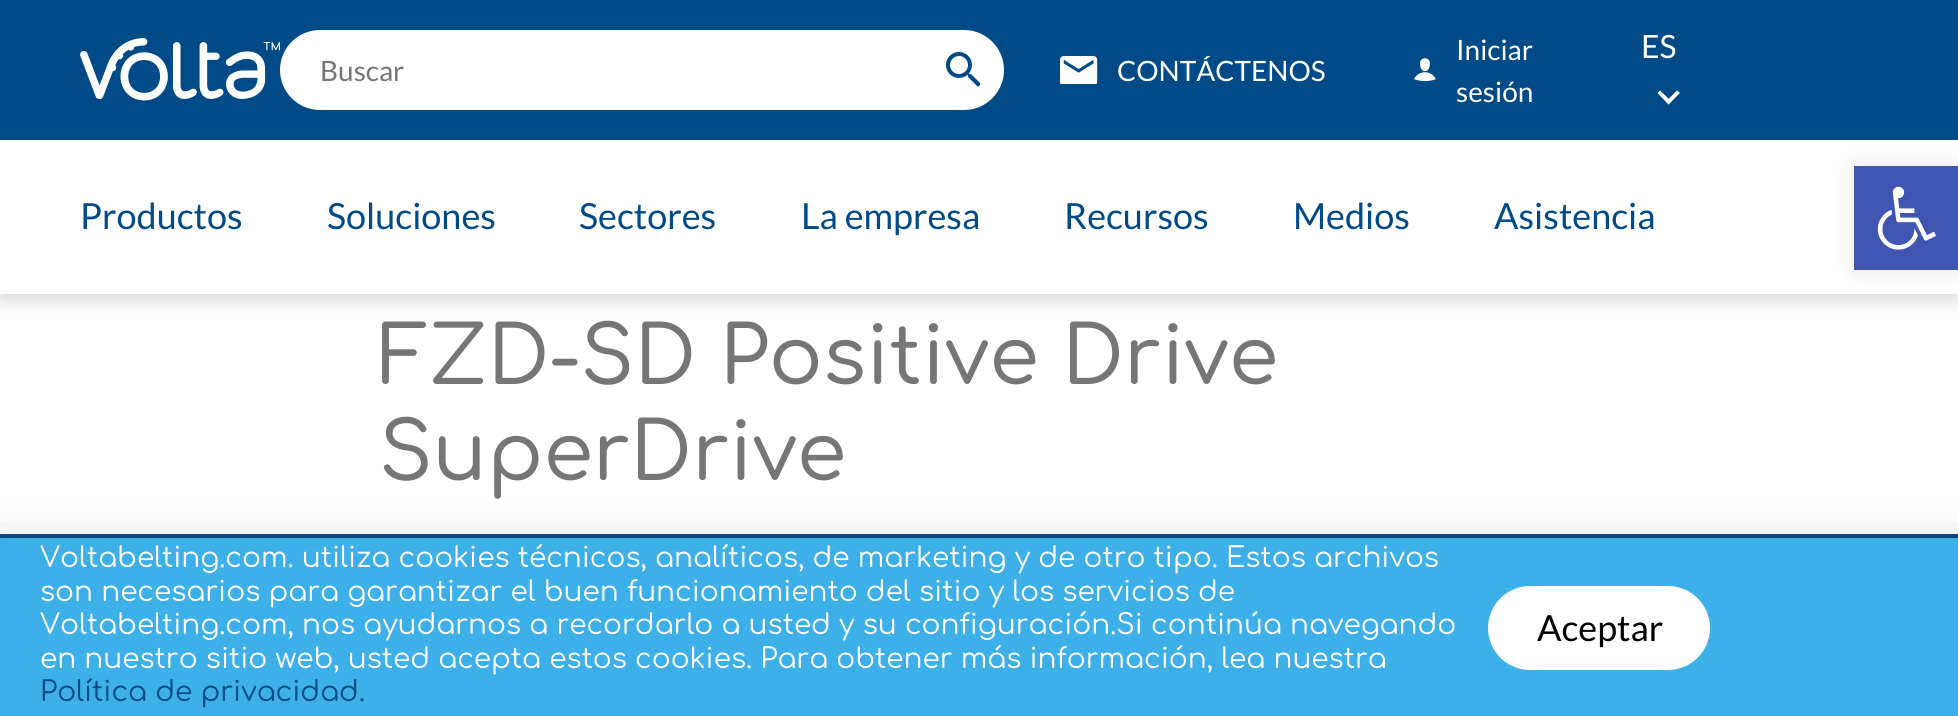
import math
import cairocffi as cairo

surface = cairo.ImageSurface(cairo.FORMAT_RGB24, 1958, 716)
ctx = cairo.Context(surface)
options = cairo.FontOptions()
options.set_hint_metrics(cairo.HINT_METRICS_OFF)
options.set_hint_style(cairo.HINT_STYLE_NONE)
ctx.set_font_options(options)
ctx.set_miter_limit(4)


def rgb(r, g, b):
    ctx.set_source_rgb(r / 255, g / 255, b / 255)


def face(family, size, italic, bold):
    ctx.select_font_face(family, cairo.FONT_SLANT_ITALIC if italic else cairo.FONT_SLANT_NORMAL, cairo.FONT_WEIGHT_BOLD if bold else cairo.FONT_WEIGHT_NORMAL)
    ctx.set_font_size(size)


def label(x, y, s):
    ctx.move_to(x, y)
    ctx.show_text(s)


def rect(x, y, w, h):
    ctx.rectangle(x, y, w, h)
    ctx.fill()


def rrect(x, y, w, h, r):
    ctx.new_sub_path()
    for i, (u, v) in enumerate([(x + w - r, y + h - r), (x + r, y + h - r), (x + r, y + r), (x + w - r, y + r)]):
        ctx.arc(u, v, r, i * math.pi / 2, (i + 1) * math.pi / 2)
    ctx.close_path()


def soft_shadow(x, y, w, h, r, blur, alpha):
    ctx.push_group_with_content(cairo.CONTENT_ALPHA)
    ctx.set_operator(cairo.OPERATOR_SOURCE)
    for i in range(15, -16, -2):
        e = blur * i / 6
        if min(w, h) + 2 * e > 0:
            ctx.set_source_rgba(0, 0, 0, alpha * math.erfc((i - 1) / 8.5) / 2)
            rrect(x - e, y - e, w + 2 * e, h + 2 * e, max(0, min(r + e + blur * .6, min(w, h) / 2 + e)))
            ctx.fill()
    ctx.mask(ctx.pop_group())


def image(path, x, y, w, h):
    ctx.save()
    ctx.set_source_surface(cairo.ImageSurface.create_from_png(path), x, y)
    ctx.rectangle(x, y, w, h)
    ctx.fill()
    ctx.restore()


rgb(255, 255, 255)
ctx.paint()
ctx.save()
ctx.rectangle(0, 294, 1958, 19)
ctx.clip()
rgb(54, 54, 54)
soft_shadow(0, 6, 1958, 294, 0, 10, 0.2)
ctx.restore()
rgb(0, 75, 135)
rect(0, 0, 1958, 140)
image('image0.png', 80, 38, 200, 63)
rgb(255, 255, 255)
rrect(280, 30, 724, 80, 40)
ctx.fill()
face('Lato', 28, 0, 0)
rgb(118, 118, 118)
label(320, 81, 'Buscar')
image('image1.png', 946, 52, 34, 35)
image('image2.png', 1060, 56, 38, 28)
rgb(255, 255, 255)
label(1117, 81, 'CONTÁCTENOS')
image('image3.png', 1414, 58, 22, 24)
label(1456, 60, 'Iniciar')
label(1456, 102, 'sesión')
face('Lato', 32, 0, 0)
label(1641, 58, 'ES')
ctx.new_path()
ctx.move_to(1680, 93)
ctx.line_to(1668.5, 104.5)
ctx.line_to(1666, 101.5)
ctx.line_to(1677, 90.5)
ctx.close_path()
ctx.fill()
ctx.new_path()
ctx.move_to(1671.5, 101.5)
ctx.line_to(1668.5, 104.5)
ctx.line_to(1657.5, 93)
ctx.line_to(1660, 90.5)
ctx.close_path()
ctx.fill()
face('Lato', 36, 0, 0)
rgb(0, 75, 135)
label(80, 229, 'Productos')
label(327, 229, 'Soluciones')
label(579, 229, 'Sectores')
label(801, 229, 'La empresa')
label(1064, 229, 'Recursos')
label(1293, 229, 'Medios')
label(1494, 229, 'Asistencia')
rgb(0, 0, 0)
soft_shadow(1854, 166, 104, 104, 0, 10, 0.1)
rgb(64, 84, 178)
rect(1854, 166, 104, 104)
image('image4.png', 1877, 186, 59, 64)
face('Comfortaa Medium', 80, 0, 0)
rgb(118, 118, 118)
label(379, 384, 'FZD-SD Positive Drive')
label(379, 480, 'SuperDrive')
rgb(0, 75, 135)
rect(0, 534, 1958, 4)
rgb(0, 0, 0)
soft_shadow(-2, 548, 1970, 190, 0, 23, 0.2)
rgb(61, 175, 233)
rect(0, 538, 1958, 178)
face('Comfortaa', 28, 0, 0)
rgb(255, 255, 255)
label(40, 567, 'Voltabelting.com. utiliza cookies técnicos, analíticos, de marketing y de otro tipo. Estos archivos')
label(40, 601, 'son necesarios para garantizar el buen funcionamiento del sitio y los servicios de')
label(40, 634, 'Voltabelting.com, nos ayudarnos a recordarlo a usted y su configuración.Si continúa navegando')
label(40, 668, 'en nuestro sitio web, usted acepta estos cookies. Para obtener más información, lea nuestra')
rgb(0, 75, 135)
label(40, 701, 'Política de privacidad.')
rgb(255, 255, 255)
rrect(1488, 586, 222, 84, 42)
ctx.fill()
face('Lato', 36, 0, 0)
rgb(0, 0, 0)
label(1537, 641, 'Aceptar')
surface.write_to_png('render.png')
